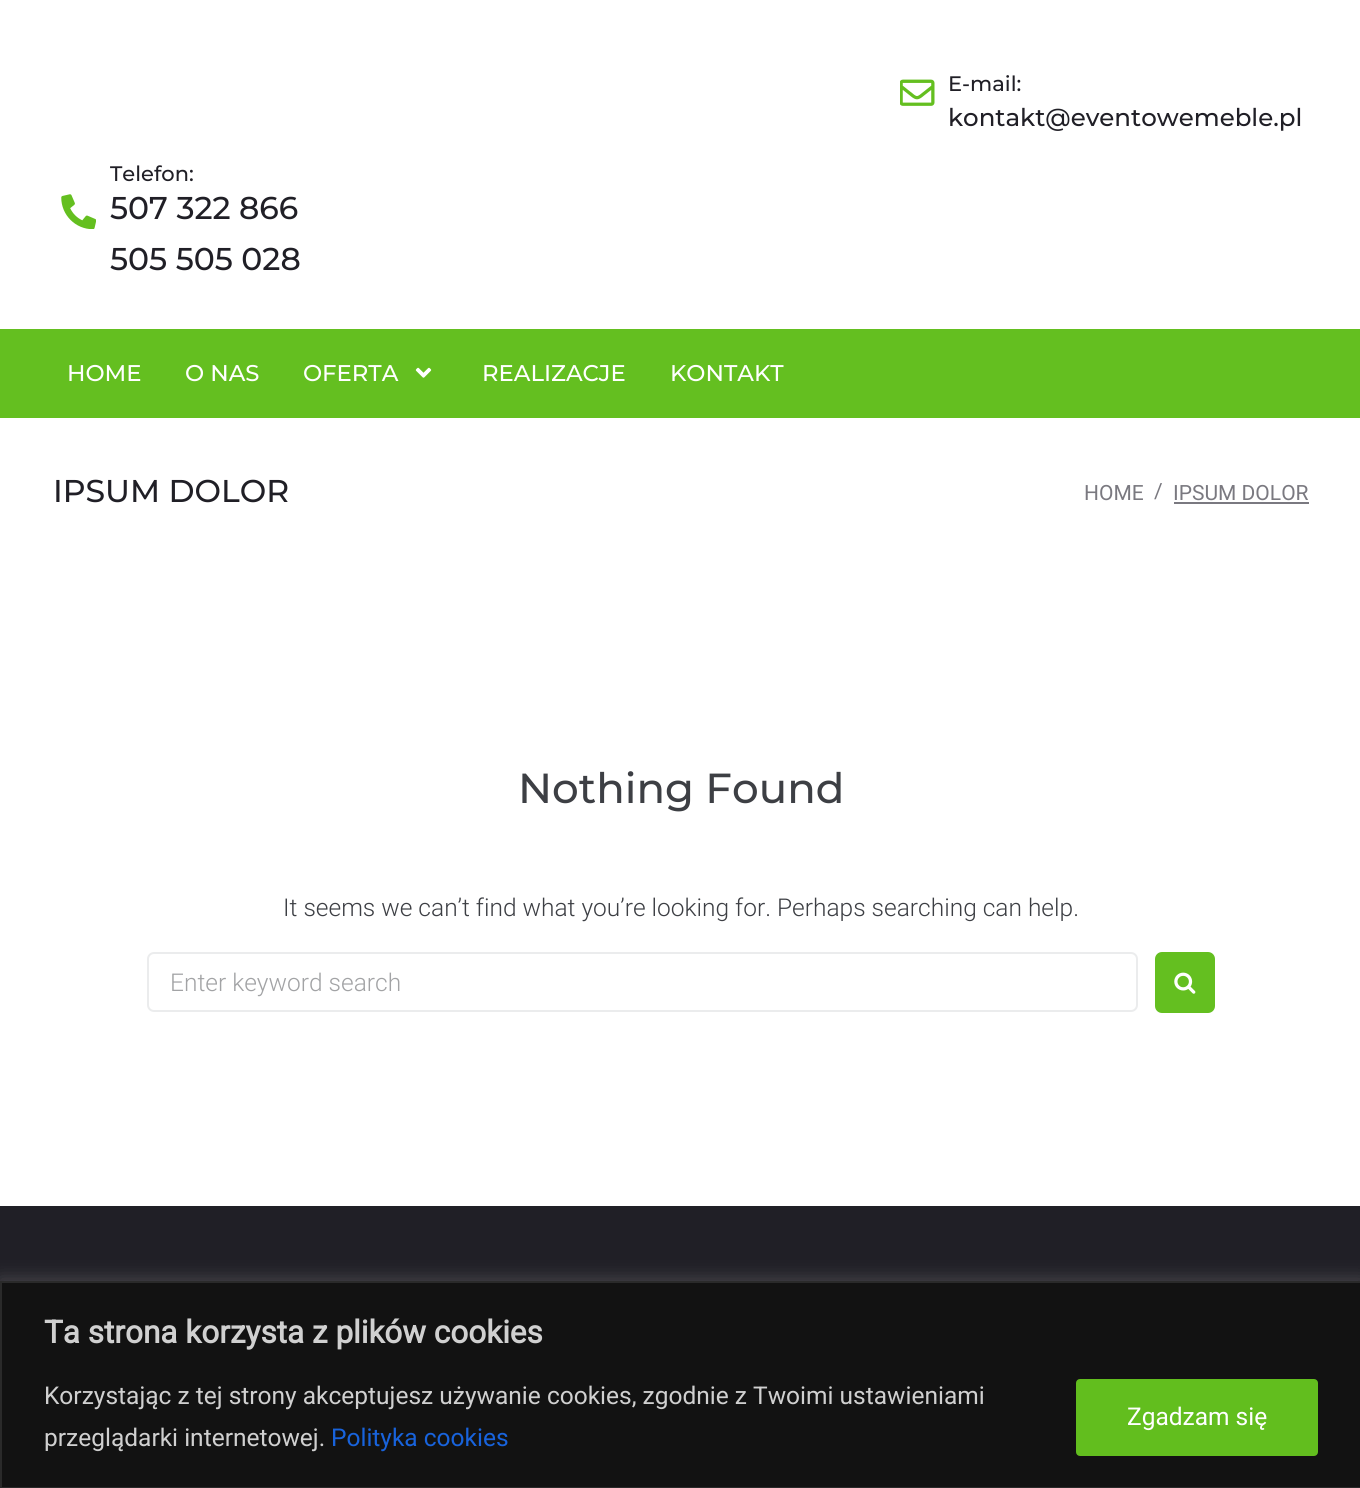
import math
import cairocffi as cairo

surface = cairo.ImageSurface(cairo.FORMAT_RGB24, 1360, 1488)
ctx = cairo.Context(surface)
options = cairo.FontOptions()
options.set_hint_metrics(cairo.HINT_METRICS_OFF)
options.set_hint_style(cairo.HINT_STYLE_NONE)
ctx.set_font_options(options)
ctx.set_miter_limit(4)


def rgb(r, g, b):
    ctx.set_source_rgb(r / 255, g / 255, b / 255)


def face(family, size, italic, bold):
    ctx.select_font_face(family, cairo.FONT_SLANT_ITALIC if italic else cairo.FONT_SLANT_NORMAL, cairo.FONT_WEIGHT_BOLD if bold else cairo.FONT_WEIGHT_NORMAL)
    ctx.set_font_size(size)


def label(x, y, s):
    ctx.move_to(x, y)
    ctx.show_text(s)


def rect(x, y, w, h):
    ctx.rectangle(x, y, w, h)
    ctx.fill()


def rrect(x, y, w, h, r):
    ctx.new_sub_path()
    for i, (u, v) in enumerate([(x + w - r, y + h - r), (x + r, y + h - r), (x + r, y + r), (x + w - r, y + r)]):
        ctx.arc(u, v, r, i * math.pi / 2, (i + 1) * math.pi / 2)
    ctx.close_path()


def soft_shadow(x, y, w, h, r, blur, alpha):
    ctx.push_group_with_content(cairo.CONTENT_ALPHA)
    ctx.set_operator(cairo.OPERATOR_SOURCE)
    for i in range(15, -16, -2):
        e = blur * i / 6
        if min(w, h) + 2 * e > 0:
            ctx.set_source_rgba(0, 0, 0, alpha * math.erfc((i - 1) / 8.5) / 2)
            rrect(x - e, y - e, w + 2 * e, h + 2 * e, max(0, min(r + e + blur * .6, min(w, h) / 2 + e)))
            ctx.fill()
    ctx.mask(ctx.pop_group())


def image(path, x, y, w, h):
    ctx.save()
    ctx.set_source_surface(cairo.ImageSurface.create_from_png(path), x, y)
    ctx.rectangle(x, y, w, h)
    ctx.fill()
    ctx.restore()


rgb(255, 255, 255)
ctx.paint()
image('image0.png', 900, 79, 35, 27)
face('Montserrat Medium', 21, 0, 0)
rgb(32, 31, 38)
label(948, 91, 'E-mail:')
face('Montserrat Medium', 24.5, 0, 0)
label(948, 126, 'kontakt@eventowemeble.pl')
image('image1.png', 61, 194, 35, 35)
face('Montserrat Medium', 21, 0, 0)
label(110, 181, 'Telefon:')
face('Montserrat Medium', 31.5, 0, 0)
label(110, 219, '507 322 866')
label(110, 270, '505 505 028')
rgb(100, 191, 32)
rect(0, 329, 1360, 89)
face('Montserrat Medium', 22.75, 0, 0)
rgb(255, 255, 255)
label(67, 381, 'HOME')
label(185, 381, 'O NAS')
label(303, 381, 'OFERTA')
image('image2.png', 415, 367, 17, 11)
label(482, 381, 'REALIZACJE')
label(670, 381, 'KONTAKT')
face('Montserrat Medium', 31.5, 0, 0)
rgb(32, 31, 38)
label(53, 502, 'IPSUM DOLOR')
face('Roboto', 21, 0, 0)
rgb(122, 121, 128)
label(1084, 500, 'HOME')
label(1154, 498, '/')
label(1173, 500, 'IPSUM DOLOR')
rect(1174, 502, 135, 2)
face('Montserrat Medium', 42, 0, 0)
rgb(61, 63, 68)
label(518, 803, 'Nothing Found')
face('Roboto Light', 24.5, 0, 0)
label(283, 916, 'It seems we can’t find what you’re looking for. Perhaps searching can help.')
rrect(148, 953, 989, 58, 6)
rgb(235, 236, 237)
ctx.stroke()
rgb(162, 163, 165)
label(170, 991, 'Enter keyword search')
rgb(100, 191, 32)
rrect(1155, 952, 60, 61, 7)
ctx.fill()
image('image3.png', 1174, 972, 22, 22)
rgb(32, 31, 38)
rect(0, 1206, 1360, 75)
rgb(172, 171, 171)
soft_shadow(0, 1279, 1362, 209, 0, 9, 0.3)
rgb(18, 18, 18)
ctx.rectangle(1, 1282, 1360, 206)
ctx.fill_preserve()
rgb(42, 42, 42)
ctx.stroke()
face('Roboto', 31.5, 0, 1)
rgb(208, 208, 208)
label(44, 1343, 'Ta strona korzysta z plików cookies')
face('Roboto', 24.5, 0, 0)
label(44, 1404, 'Korzystając z tej strony akceptujesz używanie cookies, zgodnie z Twoimi ustawieniami')
label(44, 1446, 'przeglądarki internetowej.')
rgb(24, 99, 220)
label(331, 1446, 'Polityka cookies')
rgb(98, 190, 30)
rrect(1078, 1381, 238, 73, 2)
ctx.fill_preserve()
ctx.set_line_width(4)
ctx.stroke()
rgb(255, 255, 255)
label(1127, 1425, 'Zgadzam się')
surface.write_to_png('render.png')
